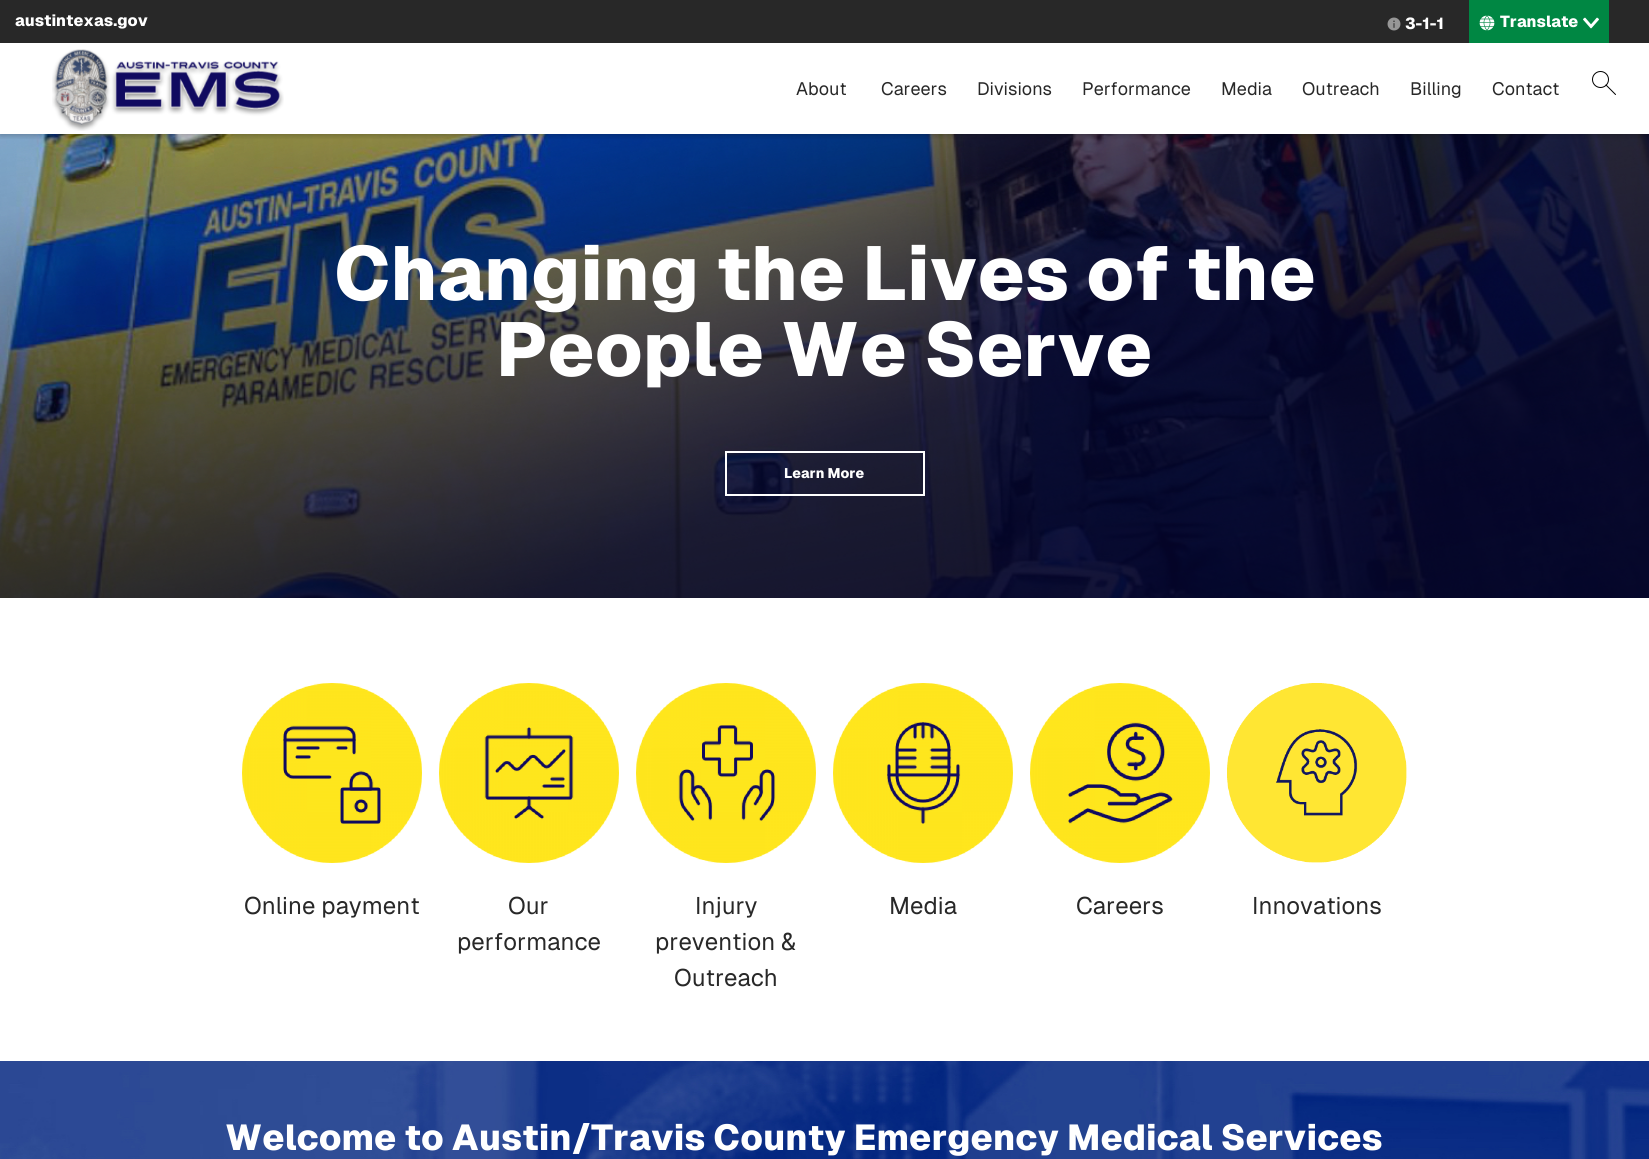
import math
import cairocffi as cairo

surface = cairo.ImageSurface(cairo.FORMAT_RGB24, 1649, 1159)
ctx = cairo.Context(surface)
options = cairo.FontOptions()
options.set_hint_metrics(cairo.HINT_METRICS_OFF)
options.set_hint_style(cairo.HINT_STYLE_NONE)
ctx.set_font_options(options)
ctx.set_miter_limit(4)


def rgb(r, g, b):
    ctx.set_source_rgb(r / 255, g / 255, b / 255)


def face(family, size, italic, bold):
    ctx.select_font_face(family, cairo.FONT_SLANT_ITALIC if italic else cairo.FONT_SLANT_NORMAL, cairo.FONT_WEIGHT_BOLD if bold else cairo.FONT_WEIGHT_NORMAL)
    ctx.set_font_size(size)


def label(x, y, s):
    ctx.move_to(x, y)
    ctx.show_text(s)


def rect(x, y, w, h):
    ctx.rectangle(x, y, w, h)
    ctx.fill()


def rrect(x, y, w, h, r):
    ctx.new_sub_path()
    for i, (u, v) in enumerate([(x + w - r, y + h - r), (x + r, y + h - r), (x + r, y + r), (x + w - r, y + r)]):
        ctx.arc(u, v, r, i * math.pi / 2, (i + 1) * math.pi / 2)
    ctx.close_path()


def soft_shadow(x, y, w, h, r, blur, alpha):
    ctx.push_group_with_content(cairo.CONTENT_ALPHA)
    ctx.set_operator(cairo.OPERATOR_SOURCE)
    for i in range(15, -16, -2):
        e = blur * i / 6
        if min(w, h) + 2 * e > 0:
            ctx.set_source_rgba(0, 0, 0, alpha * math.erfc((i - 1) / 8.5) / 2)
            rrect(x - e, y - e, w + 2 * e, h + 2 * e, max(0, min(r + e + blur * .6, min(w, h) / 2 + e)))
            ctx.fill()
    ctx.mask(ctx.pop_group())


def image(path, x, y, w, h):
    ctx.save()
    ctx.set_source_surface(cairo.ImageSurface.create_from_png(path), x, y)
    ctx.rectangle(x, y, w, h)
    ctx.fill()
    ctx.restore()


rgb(255, 255, 255)
ctx.paint()
image('image4.png', 0, 134, 1649, 464)
ctx.save()
ctx.rectangle(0, 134, 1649, 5)
ctx.clip()
rgb(0, 0, 0)
soft_shadow(0, 2, 1649, 134, 0, 2.5, 0.2)
ctx.restore()
rgb(40, 40, 40)
rect(0, 0, 1649, 43)
face('Geist ExtraBold', 16, 0, 0)
rgb(255, 255, 255)
label(15, 26, 'austintexas.gov')
image('image0.png', 1387, 17, 14, 14)
label(1405, 29, '3-1-1')
rgb(0, 135, 67)
rect(1469, 0, 140, 43)
image('image1.png', 1479, 15, 16, 16)
rgb(255, 255, 255)
label(1500, 27, 'Translate')
image('image2.png', 1583, 17, 16, 12)
image('image3.png', 52, 49, 232, 82)
ctx.arc(1600.5, 79.5, 8, 0, 2 * math.pi)
rgb(0, 0, 0)
ctx.set_line_width(1)
ctx.stroke()
ctx.new_path()
ctx.move_to(1606, 85)
ctx.line_to(1615.5, 94.5)
ctx.set_line_cap(cairo.LINE_CAP_ROUND)
ctx.set_line_join(cairo.LINE_JOIN_ROUND)
ctx.stroke()
face('Geist', 18, 0, 0)
rgb(40, 40, 40)
label(796, 95, 'About')
label(881, 95, 'Careers')
label(977, 95, 'Divisions')
label(1082, 95, 'Performance')
label(1221, 95, 'Media')
label(1302, 95, 'Outreach')
label(1410, 95, 'Billing')
label(1492, 95, 'Contact')
face('Geist ExtraBold', 76, 0, 0)
rgb(255, 255, 255)
label(334, 300, 'Changing the Lives of the')
label(496, 376, 'People We Serve')
ctx.rectangle(726, 452, 198, 43)
ctx.set_line_width(2)
ctx.set_line_cap(cairo.LINE_CAP_BUTT)
ctx.set_line_join(cairo.LINE_JOIN_MITER)
ctx.stroke()
face('Geist ExtraBold', 14, 0, 0)
label(784, 478, 'Learn More')
image('image5.png', 242, 683, 180, 180)
face('Geist', 24, 0, 0)
rgb(40, 40, 40)
label(244, 914, 'Online payment')
image('image6.png', 439, 683, 180, 180)
label(508, 914, 'Our')
label(457, 950, 'performance')
image('image7.png', 636, 683, 180, 180)
label(695, 914, 'Injury')
label(655, 950, 'prevention &')
label(674, 986, 'Outreach')
image('image8.png', 833, 683, 180, 180)
label(889, 914, 'Media')
image('image9.png', 1030, 683, 180, 180)
label(1076, 914, 'Careers')
image('image10.png', 1227, 683, 180, 180)
label(1252, 914, 'Innovations')
image('image11.png', 0, 1061, 1649, 98)
face('Geist ExtraBold', 36, 0, 0)
rgb(255, 255, 255)
label(225, 1150, 'Welcome to Austin/Travis County Emergency Medical Services')
surface.write_to_png('render.png')
